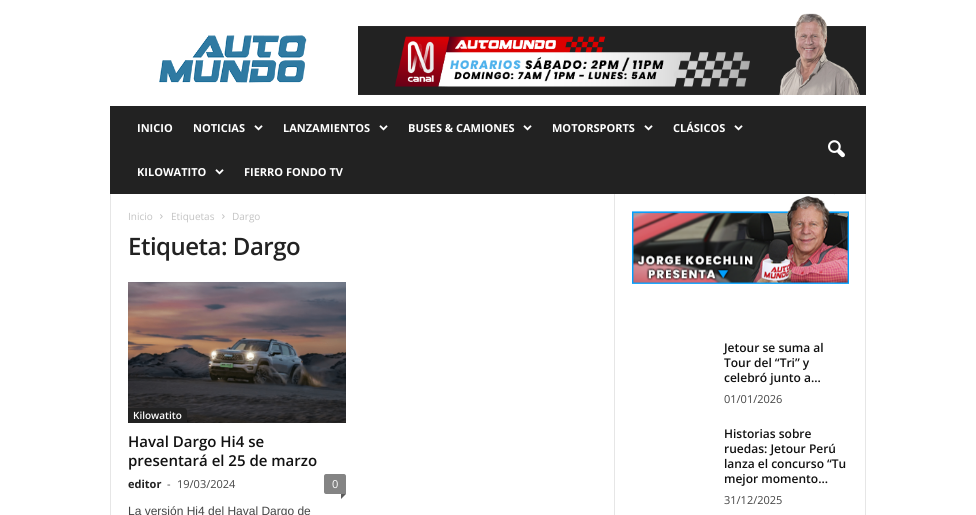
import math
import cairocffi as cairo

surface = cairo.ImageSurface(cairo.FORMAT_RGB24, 976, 515)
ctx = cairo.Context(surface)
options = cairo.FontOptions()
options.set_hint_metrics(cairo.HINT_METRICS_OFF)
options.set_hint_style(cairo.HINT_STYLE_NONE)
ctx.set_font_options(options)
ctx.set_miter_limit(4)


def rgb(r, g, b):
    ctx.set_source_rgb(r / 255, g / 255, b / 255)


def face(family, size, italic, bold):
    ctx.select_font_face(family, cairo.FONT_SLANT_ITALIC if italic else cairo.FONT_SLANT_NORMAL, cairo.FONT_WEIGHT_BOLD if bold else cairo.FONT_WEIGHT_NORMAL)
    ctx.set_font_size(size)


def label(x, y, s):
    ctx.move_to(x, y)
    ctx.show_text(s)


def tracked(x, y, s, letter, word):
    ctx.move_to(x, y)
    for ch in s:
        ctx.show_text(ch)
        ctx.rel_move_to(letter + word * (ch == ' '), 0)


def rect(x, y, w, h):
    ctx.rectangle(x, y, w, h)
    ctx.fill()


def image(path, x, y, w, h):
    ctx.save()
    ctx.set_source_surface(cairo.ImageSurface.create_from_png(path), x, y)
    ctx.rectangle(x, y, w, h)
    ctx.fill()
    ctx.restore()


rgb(255, 255, 255)
ctx.paint()
image('image0.png', 159, 35, 148, 48)
image('image1.png', 358, 13, 508, 82)
rgb(34, 34, 34)
rect(110, 106, 756, 88)
face('Open Sans', 11, 0, 1)
rgb(255, 255, 255)
label(137, 132, 'INICIO')
label(193, 132, 'NOTICIAS')
image('image2.png', 254, 125, 9, 6)
label(283, 132, 'LANZAMIENTOS')
image('image2.png', 379, 125, 9, 6)
label(408, 132, 'BUSES & CAMIONES')
image('image2.png', 523, 125, 9, 6)
label(552, 132, 'MOTORSPORTS')
image('image2.png', 644, 125, 9, 6)
label(673, 132, 'CLÁSICOS')
image('image2.png', 734, 125, 9, 6)
label(137, 176, 'KILOWATITO')
image('image2.png', 215, 169, 9, 6)
label(244, 176, 'FIERRO FONDO TV')
image('image3.png', 828, 140, 17, 18)
rgb(230, 230, 230)
rect(110, 194, 1, 321)
face('Open Sans', 10, 0, 0)
rgb(195, 195, 195)
label(128, 220, 'Inicio')
image('image4.png', 160, 214, 3, 5)
label(171, 220, 'Etiquetas')
image('image4.png', 222, 214, 3, 5)
label(232, 220, 'Dargo')
face('Open Sans SemiBold', 24, 0, 0)
rgb(34, 34, 34)
tracked(128, 255, 'Etiqueta: Dargo', -0.5, 0)
image('image5.png', 128, 282, 218, 141)
ctx.new_path()
ctx.move_to(128, 408)
ctx.line_to(184, 408)
ctx.curve_to(185.5, 408, 187, 409.5, 187, 411)
ctx.line_to(187, 423)
ctx.line_to(128, 423)
ctx.close_path()
ctx.fill()
face('Open Sans SemiBold', 10, 0, 0)
rgb(255, 255, 255)
label(133, 419, 'Kilowatito')
face('Open Sans SemiBold', 15, 0, 0)
rgb(17, 17, 17)
label(128, 447, 'Haval Dargo Hi4 se')
label(128, 466, 'presentará el 25 de marzo')
face('Open Sans', 11, 0, 1)
rgb(34, 34, 34)
label(128, 488, 'editor')
face('Open Sans', 11, 0, 0)
rgb(68, 68, 68)
label(167, 488, '-')
label(177, 488, '19/03/2024')
rgb(132, 132, 132)
ctx.new_path()
ctx.move_to(326, 474)
ctx.line_to(344, 474)
ctx.curve_to(345, 474, 346, 475, 346, 476)
ctx.line_to(346, 494)
ctx.line_to(326, 494)
ctx.curve_to(325, 494, 324, 493, 324, 492)
ctx.line_to(324, 476)
ctx.curve_to(324, 475, 325, 474, 326, 474)
ctx.close_path()
ctx.fill()
rgb(255, 255, 255)
label(332, 488, '0')
rgb(91, 91, 91)
ctx.new_path()
ctx.move_to(341, 494)
ctx.line_to(346, 494)
ctx.line_to(341, 499)
ctx.close_path()
ctx.fill()
face('Liberation Sans', 12, 0, 0)
rgb(68, 68, 68)
label(128, 515, 'La versión Hi4 del Haval Dargo de')
rgb(230, 230, 230)
rect(614, 194, 1, 321)
image('image6.png', 632, 194, 217, 90)
face('Open Sans SemiBold', 12, 0, 0)
rgb(17, 17, 17)
label(724, 352, 'Jetour se suma al')
label(724, 367, 'Tour del “Tri” y')
label(724, 382, 'celebró junto a...')
face('Open Sans', 11, 0, 0)
rgb(68, 68, 68)
label(724, 403, '01/01/2026')
face('Open Sans SemiBold', 12, 0, 0)
rgb(17, 17, 17)
label(724, 438, 'Historias sobre')
label(724, 453, 'ruedas: Jetour Perú')
label(724, 468, 'lanza el concurso “Tu')
label(724, 483, 'mejor momento...')
face('Open Sans', 11, 0, 0)
rgb(68, 68, 68)
label(724, 504, '31/12/2025')
rgb(230, 230, 230)
rect(865, 194, 1, 321)
surface.write_to_png('render.png')
